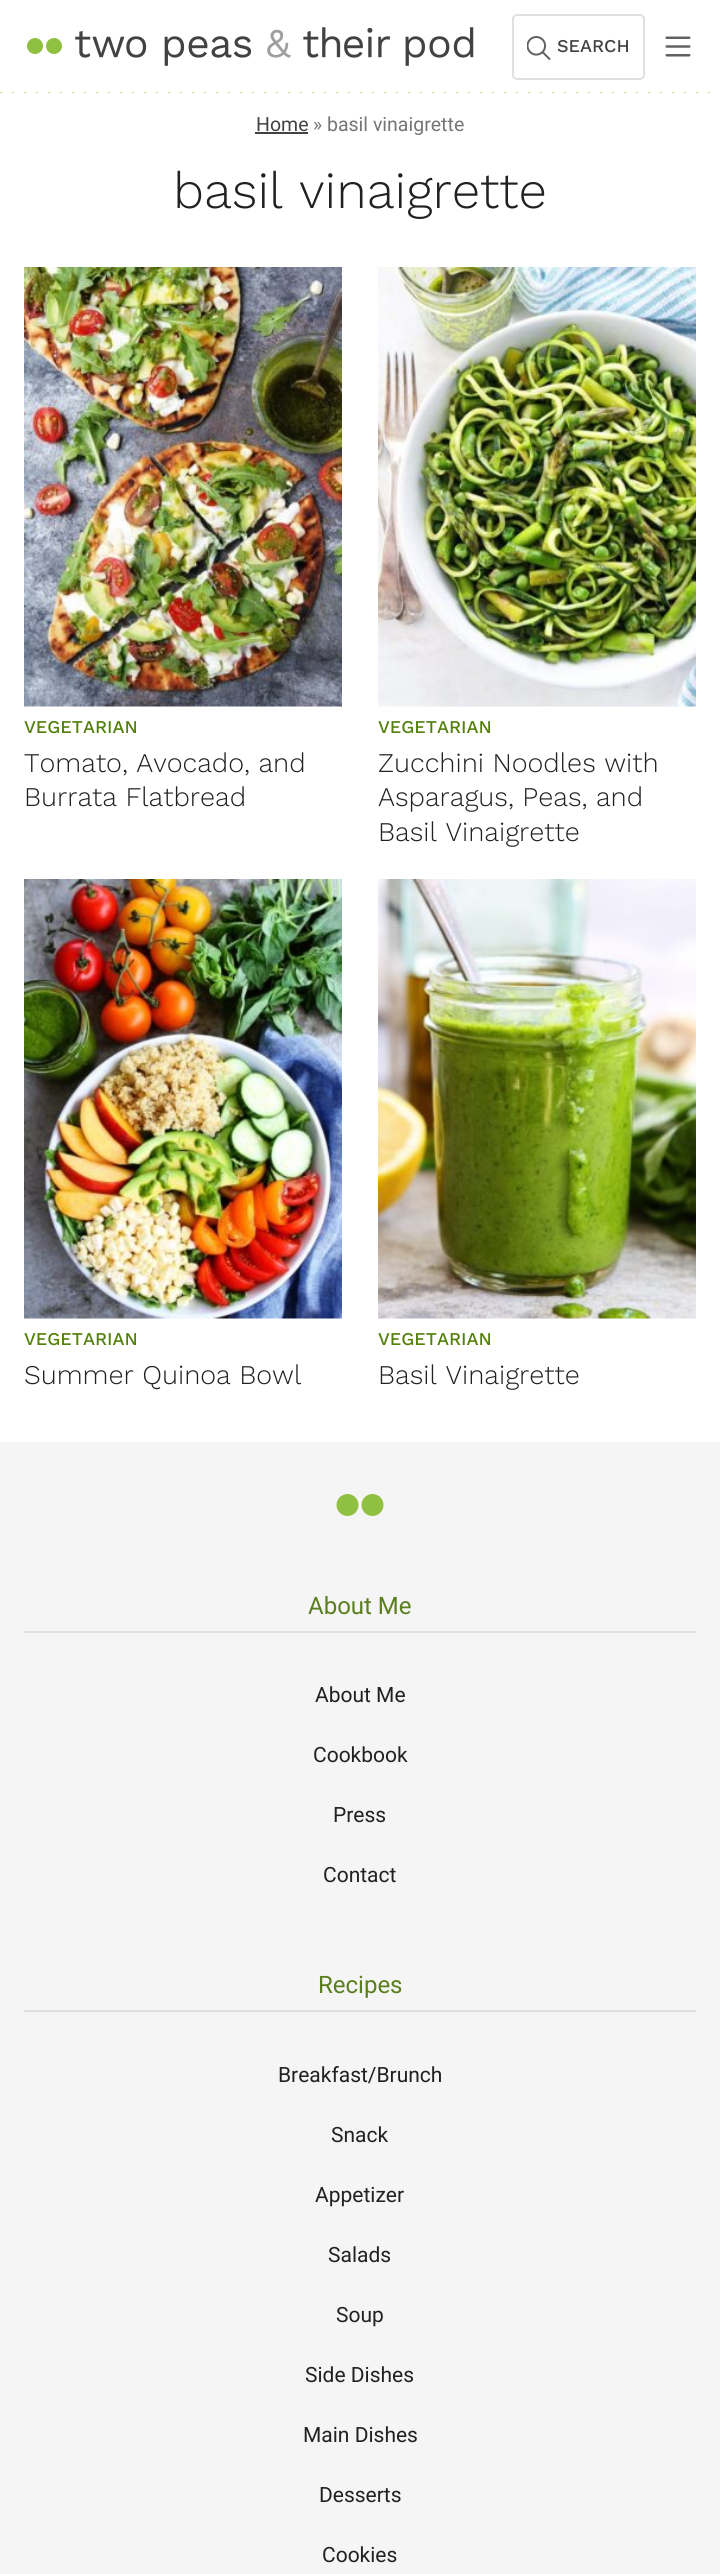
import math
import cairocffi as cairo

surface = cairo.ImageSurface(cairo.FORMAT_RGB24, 720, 2574)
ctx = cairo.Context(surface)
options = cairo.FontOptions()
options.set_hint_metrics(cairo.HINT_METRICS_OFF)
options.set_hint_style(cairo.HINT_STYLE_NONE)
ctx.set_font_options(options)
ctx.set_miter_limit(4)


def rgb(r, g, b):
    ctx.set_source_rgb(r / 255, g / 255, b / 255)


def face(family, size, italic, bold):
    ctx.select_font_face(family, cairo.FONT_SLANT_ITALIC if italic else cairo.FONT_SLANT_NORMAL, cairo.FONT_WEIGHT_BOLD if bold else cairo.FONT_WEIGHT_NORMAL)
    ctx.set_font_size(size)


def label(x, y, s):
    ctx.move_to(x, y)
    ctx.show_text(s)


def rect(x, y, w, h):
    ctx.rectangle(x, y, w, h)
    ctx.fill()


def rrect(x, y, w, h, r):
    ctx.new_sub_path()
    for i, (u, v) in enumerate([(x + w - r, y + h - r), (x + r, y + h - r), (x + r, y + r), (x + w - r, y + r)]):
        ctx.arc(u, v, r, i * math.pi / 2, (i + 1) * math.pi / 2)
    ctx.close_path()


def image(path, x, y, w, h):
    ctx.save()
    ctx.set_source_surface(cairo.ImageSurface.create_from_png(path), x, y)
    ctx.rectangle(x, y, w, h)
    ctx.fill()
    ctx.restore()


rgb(255, 255, 255)
ctx.paint()
image('image0.png', 27, 27, 447, 39)
rrect(513, 15, 131, 64, 4)
rgb(224, 224, 224)
ctx.stroke()
image('image1.png', 527, 36, 24, 24)
face('Work Sans Medium', 18, 0, 0)
rgb(66, 66, 66)
label(557, 52, 'SEARCH')
image('image2.png', 665, 36, 26, 21)
image('image3.png', 0, 92, 710, 1)
face('Roboto', 19.5, 0, 0)
label(256, 131, 'Home')
rect(255, 132, 53, 2)
rgb(117, 117, 117)
label(313, 131, '» basil vinaigrette')
face('Work Sans Light', 51, 0, 0)
rgb(33, 33, 33)
label(173, 208, 'basil vinaigrette')
image('image4.png', 24, 267, 318, 440)
face('Work Sans Medium', 18, 0, 0)
rgb(83, 128, 10)
label(24, 733, 'VEGETARIAN')
face('Work Sans Light', 27, 0, 0)
rgb(33, 33, 33)
label(24, 772, 'Tomato, Avocado, and')
label(24, 806, 'Burrata Flatbread')
image('image5.png', 378, 267, 318, 440)
face('Work Sans Medium', 18, 0, 0)
rgb(83, 128, 10)
label(378, 733, 'VEGETARIAN')
face('Work Sans Light', 27, 0, 0)
rgb(33, 33, 33)
label(378, 772, 'Zucchini Noodles with')
label(378, 806, 'Asparagus, Peas, and')
label(378, 841, 'Basil Vinaigrette')
image('image6.png', 24, 879, 318, 440)
face('Work Sans Medium', 18, 0, 0)
rgb(83, 128, 10)
label(24, 1345, 'VEGETARIAN')
face('Work Sans Light', 27, 0, 0)
rgb(33, 33, 33)
label(24, 1384, 'Summer Quinoa Bowl')
image('image7.png', 378, 879, 318, 440)
face('Work Sans Medium', 18, 0, 0)
rgb(83, 128, 10)
label(378, 1345, 'VEGETARIAN')
face('Work Sans Light', 27, 0, 0)
rgb(33, 33, 33)
label(378, 1384, 'Basil Vinaigrette')
rgb(245, 245, 245)
rect(0, 1442, 720, 1132)
rgb(144, 192, 65)
ctx.new_path()
ctx.arc(347.5, 1505, 11, 0, 2 * math.pi)
ctx.fill()
ctx.arc(372.5, 1505, 11, 0, 2 * math.pi)
ctx.fill()
rgb(224, 224, 224)
rect(24, 1631, 672, 2)
face('Roboto', 24, 0, 0)
rgb(90, 127, 30)
label(308, 1614, 'About Me')
face('Roboto', 21, 0, 0)
rgb(33, 33, 33)
label(315, 1702, 'About Me')
label(313, 1762, 'Cookbook')
label(333, 1822, 'Press')
label(323, 1882, 'Contact')
rgb(224, 224, 224)
rect(24, 2010, 672, 2)
face('Roboto', 24, 0, 0)
rgb(90, 127, 30)
label(318, 1993, 'Recipes')
face('Roboto', 21, 0, 0)
rgb(33, 33, 33)
label(278, 2082, 'Breakfast/Brunch')
label(331, 2142, 'Snack')
label(315, 2202, 'Appetizer')
label(328, 2262, 'Salads')
label(336, 2322, 'Soup')
label(305, 2382, 'Side Dishes')
label(303, 2442, 'Main Dishes')
label(319, 2502, 'Desserts')
label(322, 2562, 'Cookies')
surface.write_to_png('render.png')
